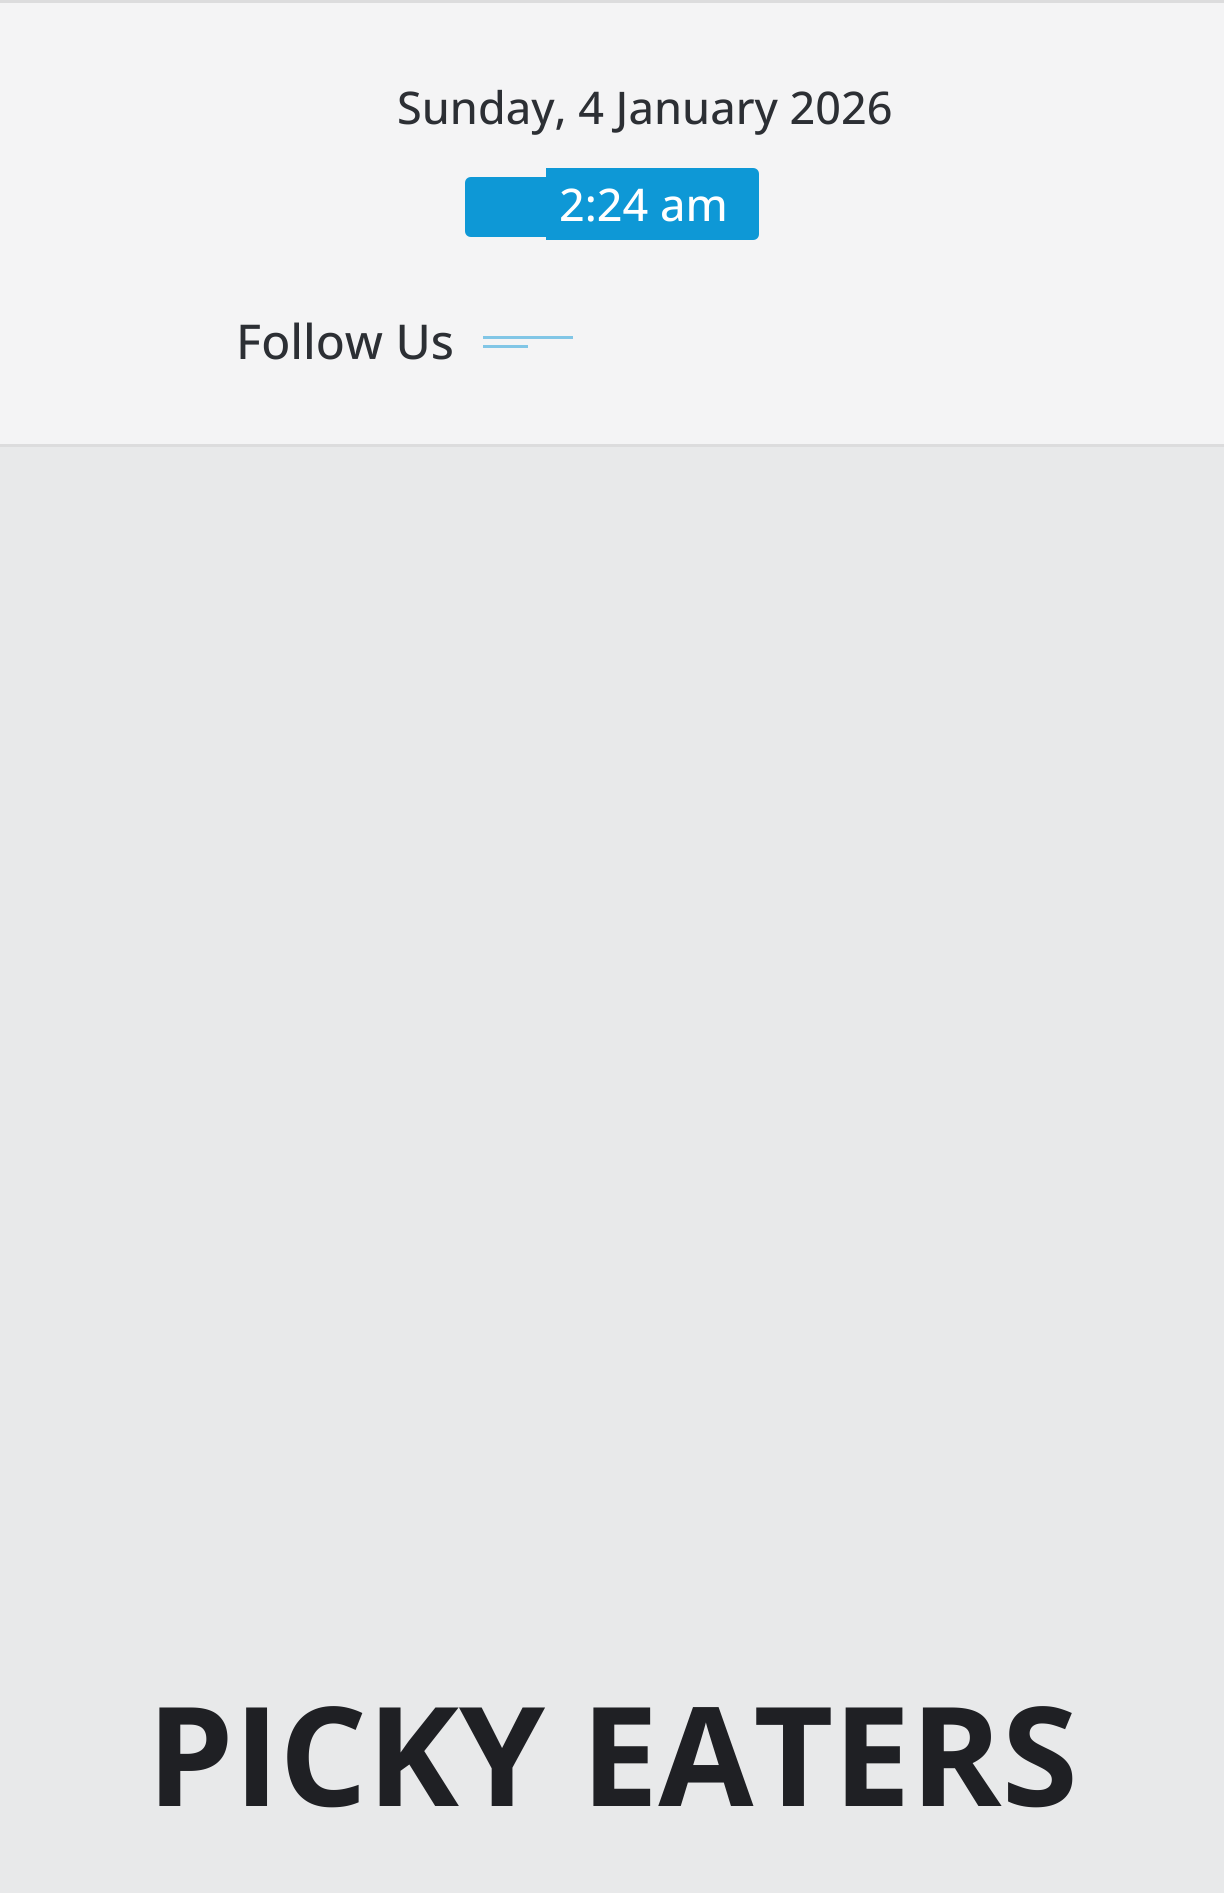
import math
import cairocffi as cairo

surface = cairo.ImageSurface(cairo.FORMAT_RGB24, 1224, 1893)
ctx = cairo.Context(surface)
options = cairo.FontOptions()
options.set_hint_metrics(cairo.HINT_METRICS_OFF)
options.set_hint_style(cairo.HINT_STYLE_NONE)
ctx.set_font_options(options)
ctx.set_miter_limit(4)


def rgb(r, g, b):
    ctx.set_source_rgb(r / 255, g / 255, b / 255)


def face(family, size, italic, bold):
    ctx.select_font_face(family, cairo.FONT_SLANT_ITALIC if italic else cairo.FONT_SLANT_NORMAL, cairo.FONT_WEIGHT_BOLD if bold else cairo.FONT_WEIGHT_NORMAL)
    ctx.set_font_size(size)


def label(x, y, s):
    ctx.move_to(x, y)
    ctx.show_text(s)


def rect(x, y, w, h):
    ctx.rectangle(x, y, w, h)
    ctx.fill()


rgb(244, 244, 245)
ctx.paint()
rgb(220, 220, 221)
rect(0, 0, 1224, 3)
rect(0, 444, 1224, 3)
face('Open Sans Medium', 45, 0, 0)
rgb(44, 47, 52)
label(397, 124, 'Sunday, 4 January 2026')
rgb(14, 152, 214)
ctx.new_path()
ctx.move_to(546, 168)
ctx.line_to(753, 168)
ctx.curve_to(756.5, 168, 759, 170.5, 759, 174)
ctx.line_to(759, 234)
ctx.curve_to(759, 237.5, 756.5, 240, 753, 240)
ctx.line_to(546, 240)
ctx.close_path()
ctx.fill()
rgb(255, 255, 255)
label(559, 221, '2:24 am')
rgb(14, 152, 214)
ctx.new_path()
ctx.move_to(471, 177)
ctx.line_to(546, 177)
ctx.line_to(546, 237)
ctx.line_to(471, 237)
ctx.curve_to(467.5, 237, 465, 234.5, 465, 231)
ctx.line_to(465, 183)
ctx.curve_to(465, 179.5, 467.5, 177, 471, 177)
ctx.close_path()
ctx.fill()
face('Open Sans Medium', 48, 0, 0)
rgb(44, 47, 52)
label(236, 359, 'Follow Us')
rgb(129, 198, 230)
rect(483, 336, 90, 3)
rect(483, 345, 45, 3)
rgb(232, 233, 234)
rect(0, 447, 1224, 1446)
face('Open Sans', 138, 0, 1)
rgb(31, 32, 36)
label(147, 1806, 'PICKY EATERS')
surface.write_to_png('render.png')
